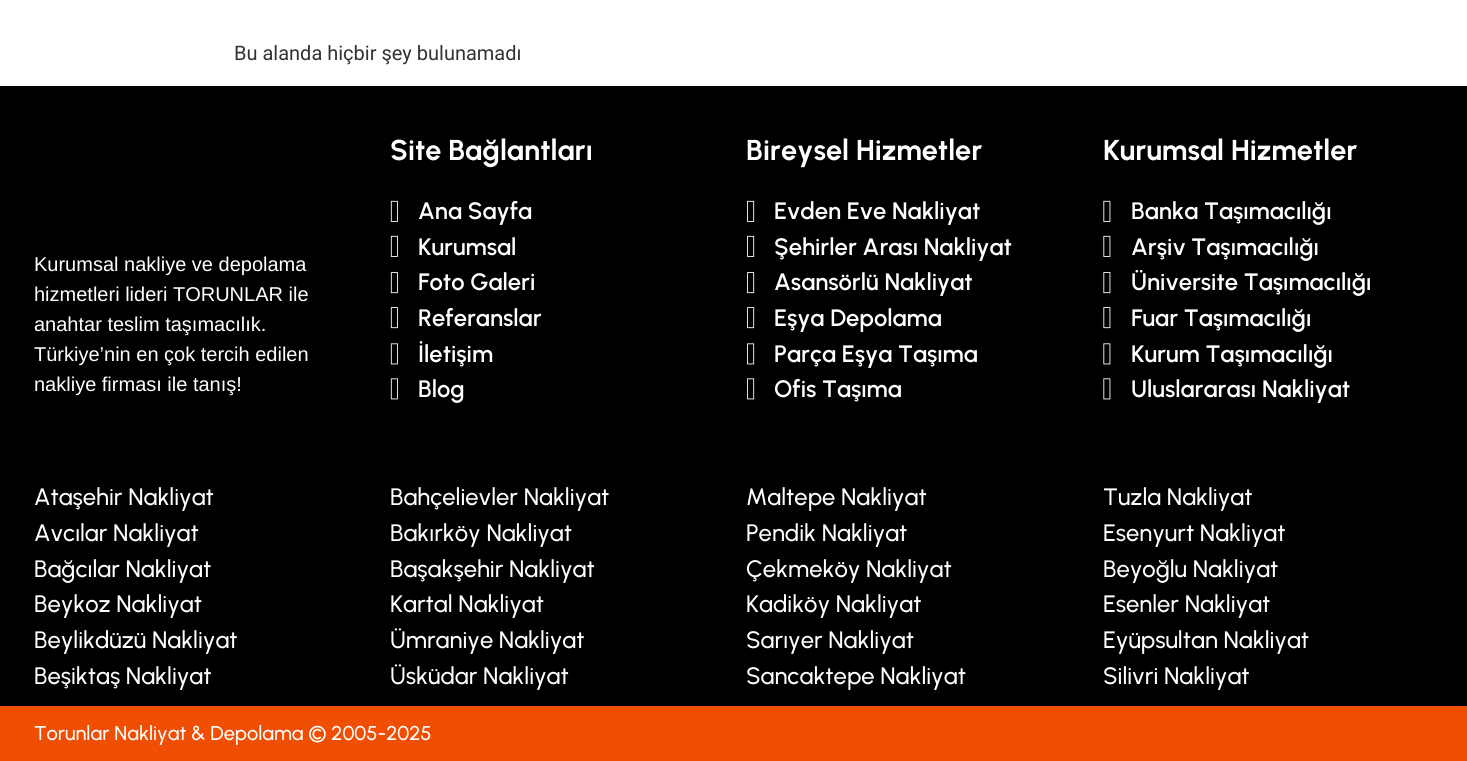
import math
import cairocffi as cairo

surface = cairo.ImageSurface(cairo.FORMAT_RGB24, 1467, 761)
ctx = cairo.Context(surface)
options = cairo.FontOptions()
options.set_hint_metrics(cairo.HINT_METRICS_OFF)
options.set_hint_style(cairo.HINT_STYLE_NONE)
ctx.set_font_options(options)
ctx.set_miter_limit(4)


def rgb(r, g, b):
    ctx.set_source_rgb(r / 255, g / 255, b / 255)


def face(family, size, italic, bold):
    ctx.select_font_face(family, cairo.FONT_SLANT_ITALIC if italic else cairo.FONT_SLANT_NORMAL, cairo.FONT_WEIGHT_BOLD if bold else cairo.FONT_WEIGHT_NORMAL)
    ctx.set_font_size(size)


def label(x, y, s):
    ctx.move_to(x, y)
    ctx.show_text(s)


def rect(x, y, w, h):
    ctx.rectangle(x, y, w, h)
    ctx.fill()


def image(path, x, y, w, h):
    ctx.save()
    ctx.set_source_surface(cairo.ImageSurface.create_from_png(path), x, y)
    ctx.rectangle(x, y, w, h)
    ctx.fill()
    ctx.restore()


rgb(255, 255, 255)
ctx.paint()
face('Roboto', 20, 0, 0)
rgb(51, 51, 51)
label(234, 60, 'Bu alanda hiçbir şey bulunamadı')
rgb(0, 0, 0)
rect(0, 86, 1467, 620)
face('Liberation Sans', 20, 0, 0)
rgb(255, 255, 255)
label(34, 271, 'Kurumsal nakliye ve depolama')
label(34, 301, 'hizmetleri lideri TORUNLAR ile')
label(34, 331, 'anahtar teslim taşımacılık.')
label(34, 361, 'Türkiye’nin en çok tercih edilen')
label(34, 391, 'nakliye firması ile tanış!')
face('Urbanist', 28.75, 0, 1)
label(390, 160, 'Site Bağlantları')
image('image0.png', 390, 200, 8, 22)
face('Urbanist SemiBold', 23.75, 0, 0)
label(418, 219, 'Ana Sayfa')
image('image0.png', 390, 235, 8, 22)
label(418, 255, 'Kurumsal')
image('image1.png', 390, 272, 8, 22)
label(418, 290, 'Foto Galeri')
image('image1.png', 390, 307, 8, 22)
label(418, 326, 'Referanslar')
image('image2.png', 390, 343, 8, 22)
label(418, 362, 'İletişim')
image('image2.png', 390, 378, 8, 22)
label(418, 397, 'Blog')
face('Urbanist', 28.75, 0, 1)
label(746, 160, 'Bireysel Hizmetler')
image('image3.png', 747, 200, 8, 22)
face('Urbanist SemiBold', 23.75, 0, 0)
label(774, 219, 'Evden Eve Nakliyat')
image('image3.png', 747, 235, 8, 22)
label(774, 255, 'Şehirler Arası Nakliyat')
image('image4.png', 747, 272, 8, 22)
label(774, 290, 'Asansörlü Nakliyat')
image('image4.png', 747, 307, 8, 22)
label(774, 326, 'Eşya Depolama')
image('image5.png', 747, 343, 8, 22)
label(774, 362, 'Parça Eşya Taşıma')
image('image5.png', 747, 378, 8, 22)
label(774, 397, 'Ofis Taşıma')
face('Urbanist', 28.75, 0, 1)
label(1103, 160, 'Kurumsal Hizmetler')
image('image6.png', 1103, 200, 8, 22)
face('Urbanist SemiBold', 23.75, 0, 0)
label(1131, 219, 'Banka Taşımacılığı')
image('image6.png', 1103, 235, 8, 22)
label(1131, 255, 'Arşiv Taşımacılığı')
image('image7.png', 1103, 272, 8, 22)
label(1131, 290, 'Üniversite Taşımacılığı')
image('image7.png', 1103, 307, 8, 22)
label(1131, 326, 'Fuar Taşımacılığı')
image('image8.png', 1103, 343, 8, 22)
label(1131, 362, 'Kurum Taşımacılığı')
image('image8.png', 1103, 378, 8, 22)
label(1131, 397, 'Uluslararası Nakliyat')
face('Urbanist Medium', 23.75, 0, 0)
label(34, 505, 'Ataşehir Nakliyat')
label(34, 541, 'Avcılar Nakliyat')
label(34, 577, 'Bağcılar Nakliyat')
label(34, 612, 'Beykoz Nakliyat')
label(34, 648, 'Beylikdüzü Nakliyat')
label(34, 684, 'Beşiktaş Nakliyat')
label(390, 505, 'Bahçelievler Nakliyat')
label(390, 541, 'Bakırköy Nakliyat')
label(390, 577, 'Başakşehir Nakliyat')
label(390, 612, 'Kartal Nakliyat')
label(390, 648, 'Ümraniye Nakliyat')
label(390, 684, 'Üsküdar Nakliyat')
label(746, 505, 'Maltepe Nakliyat')
label(746, 541, 'Pendik Nakliyat')
label(746, 577, 'Çekmeköy Nakliyat')
label(746, 612, 'Kadiköy Nakliyat')
label(746, 648, 'Sarıyer Nakliyat')
label(746, 684, 'Sancaktepe Nakliyat')
label(1103, 505, 'Tuzla Nakliyat')
label(1103, 541, 'Esenyurt Nakliyat')
label(1103, 577, 'Beyoğlu Nakliyat')
label(1103, 612, 'Esenler Nakliyat')
label(1103, 648, 'Eyüpsultan Nakliyat')
label(1103, 684, 'Silivri Nakliyat')
rgb(239, 78, 3)
rect(0, 706, 1467, 55)
face('Urbanist Medium', 20, 0, 0)
rgb(255, 255, 255)
label(34, 740, 'Torunlar Nakliyat & Depolama © 2005-2025')
surface.write_to_png('render.png')
